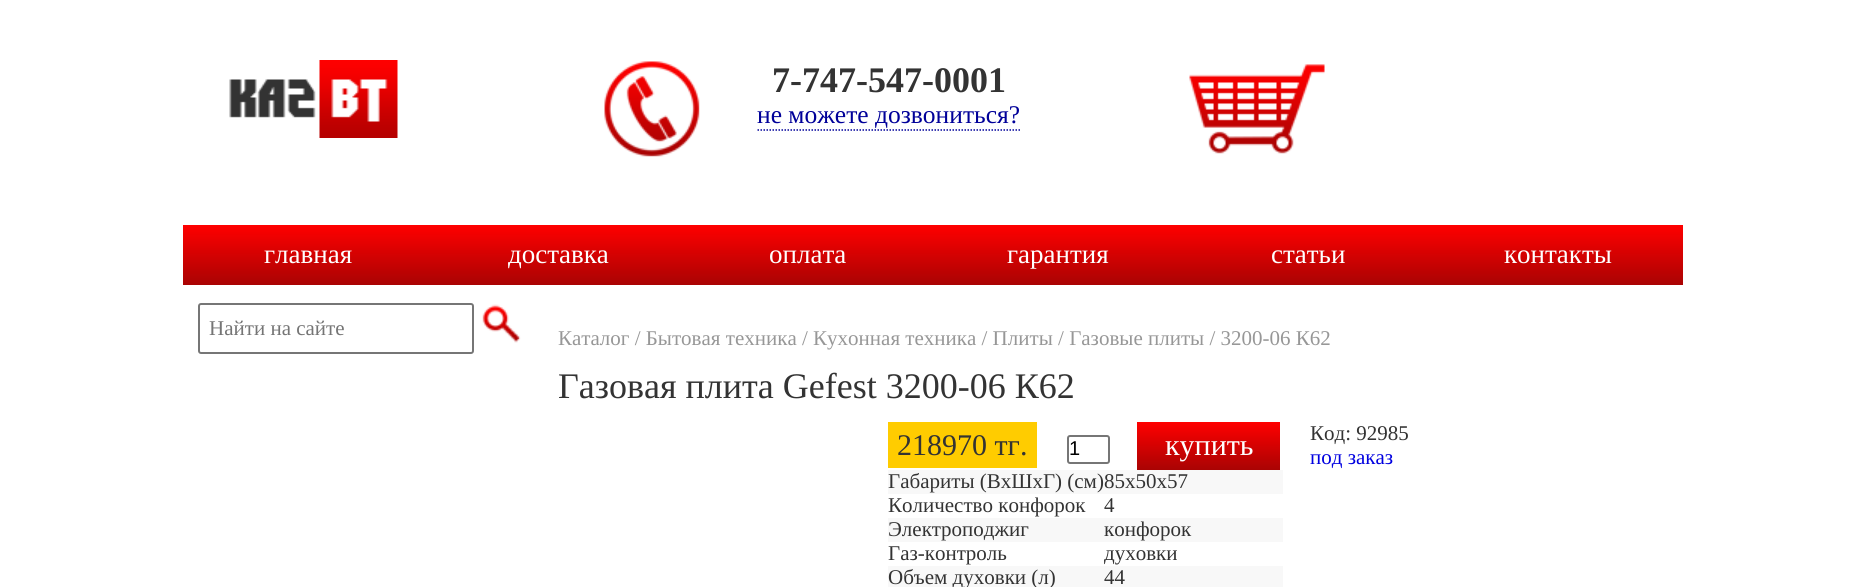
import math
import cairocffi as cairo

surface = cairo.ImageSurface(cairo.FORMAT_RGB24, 1865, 587)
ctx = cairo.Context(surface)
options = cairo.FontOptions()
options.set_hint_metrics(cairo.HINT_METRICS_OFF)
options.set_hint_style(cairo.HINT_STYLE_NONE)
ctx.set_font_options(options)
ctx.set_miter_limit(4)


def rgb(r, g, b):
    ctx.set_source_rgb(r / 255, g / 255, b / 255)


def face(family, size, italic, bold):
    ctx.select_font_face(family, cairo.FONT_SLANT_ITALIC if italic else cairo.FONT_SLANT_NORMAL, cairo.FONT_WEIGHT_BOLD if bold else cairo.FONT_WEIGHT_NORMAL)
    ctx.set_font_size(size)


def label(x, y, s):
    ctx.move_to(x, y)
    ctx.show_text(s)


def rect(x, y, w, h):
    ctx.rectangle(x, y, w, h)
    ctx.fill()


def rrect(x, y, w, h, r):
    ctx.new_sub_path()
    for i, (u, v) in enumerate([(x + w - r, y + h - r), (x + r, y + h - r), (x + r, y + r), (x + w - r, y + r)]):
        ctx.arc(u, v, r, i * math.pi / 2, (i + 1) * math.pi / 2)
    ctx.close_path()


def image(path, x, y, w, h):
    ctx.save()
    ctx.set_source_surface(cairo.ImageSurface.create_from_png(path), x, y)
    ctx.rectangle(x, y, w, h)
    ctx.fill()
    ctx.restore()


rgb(255, 255, 255)
ctx.paint()
image('image0.png', 229, 60, 169, 78)
image('image1.png', 604, 61, 96, 96)
face('Liberation Serif', 36, 0, 1)
rgb(51, 51, 51)
label(772, 92, '7-747-547-0001')
face('Liberation Serif', 25.5, 0, 0)
rgb(0, 0, 153)
label(757, 123, 'не можете дозвониться?')
ctx.new_path()
ctx.move_to(757.5, 130)
ctx.line_to(1020, 130)
ctx.set_line_width(1.5)
ctx.set_dash([1.5, 1.5])
ctx.stroke()
image('image2.png', 1189, 64, 136, 90)
gradient = cairo.LinearGradient(933, 225, 933, 285)
gradient.add_color_stop_rgba(0, 1, 0, 0, 1)
gradient.add_color_stop_rgba(1, 0.663, 0.012, 0.012, 1)
ctx.set_source(gradient)
rect(183, 225, 1500, 60)
face('Liberation Serif', 27, 0, 0)
rgb(255, 255, 255)
label(264, 263, 'главная')
label(508, 263, 'доставка')
label(769, 263, 'оплата')
label(1007, 263, 'гарантия')
label(1271, 263, 'статьи')
label(1504, 263, 'контакты')
rrect(199, 304, 274, 49, 2)
rgb(118, 118, 118)
ctx.set_line_width(2)
ctx.set_dash([])
ctx.stroke()
face('Liberation Serif', 21, 0, 0)
rgb(117, 117, 117)
label(209, 335, 'Найти на сайте')
image('image3.png', 482, 304, 39, 39)
rgb(151, 151, 151)
label(558, 345, 'Каталог / Бытовая техника / Кухонная техника / Плиты / Газовые плиты / 3200-06 К62')
face('Liberation Serif', 36, 0, 0)
rgb(51, 51, 51)
label(558, 398, 'Газовая плита Gefest 3200-06 К62')
rgb(255, 204, 0)
rect(888, 422, 149, 46)
face('Liberation Serif', 30, 0, 0)
rgb(51, 51, 51)
label(897, 455, '218970 тг.')
rrect(1068, 436, 41, 27, 2)
rgb(118, 118, 118)
ctx.stroke()
face('Liberation Sans', 20, 0, 0)
rgb(0, 0, 0)
label(1069, 455, '1')
gradient = cairo.LinearGradient(1208, 422, 1208, 470)
gradient.add_color_stop_rgba(0, 1, 0, 0, 1)
gradient.add_color_stop_rgba(1, 0.663, 0.012, 0.012, 1)
ctx.set_source(gradient)
rect(1137, 422, 143, 48)
face('Liberation Serif', 30, 0, 0)
rgb(255, 255, 255)
label(1165, 455, 'купить')
face('Liberation Serif', 21, 0, 0)
rgb(51, 51, 51)
label(1310, 440, 'Код: 92985')
rgb(0, 0, 224)
label(1310, 464, 'под заказ')
rgb(248, 248, 248)
rect(888, 470, 395, 24)
rgb(51, 51, 51)
label(888, 488, 'Габариты (ВхШхГ) (см)85х50х57')
label(888, 512, 'Количество конфорок')
label(1104, 512, '4')
rgb(248, 248, 248)
rect(888, 518, 395, 24)
rgb(51, 51, 51)
label(888, 536, 'Электроподжиг')
label(1104, 536, 'конфорок')
label(888, 560, 'Газ-контроль')
label(1104, 560, 'духовки')
rgb(248, 248, 248)
rect(888, 566, 395, 21)
rgb(51, 51, 51)
label(888, 584, 'Объем духовки (л)')
label(1104, 584, '44')
surface.write_to_png('render.png')
